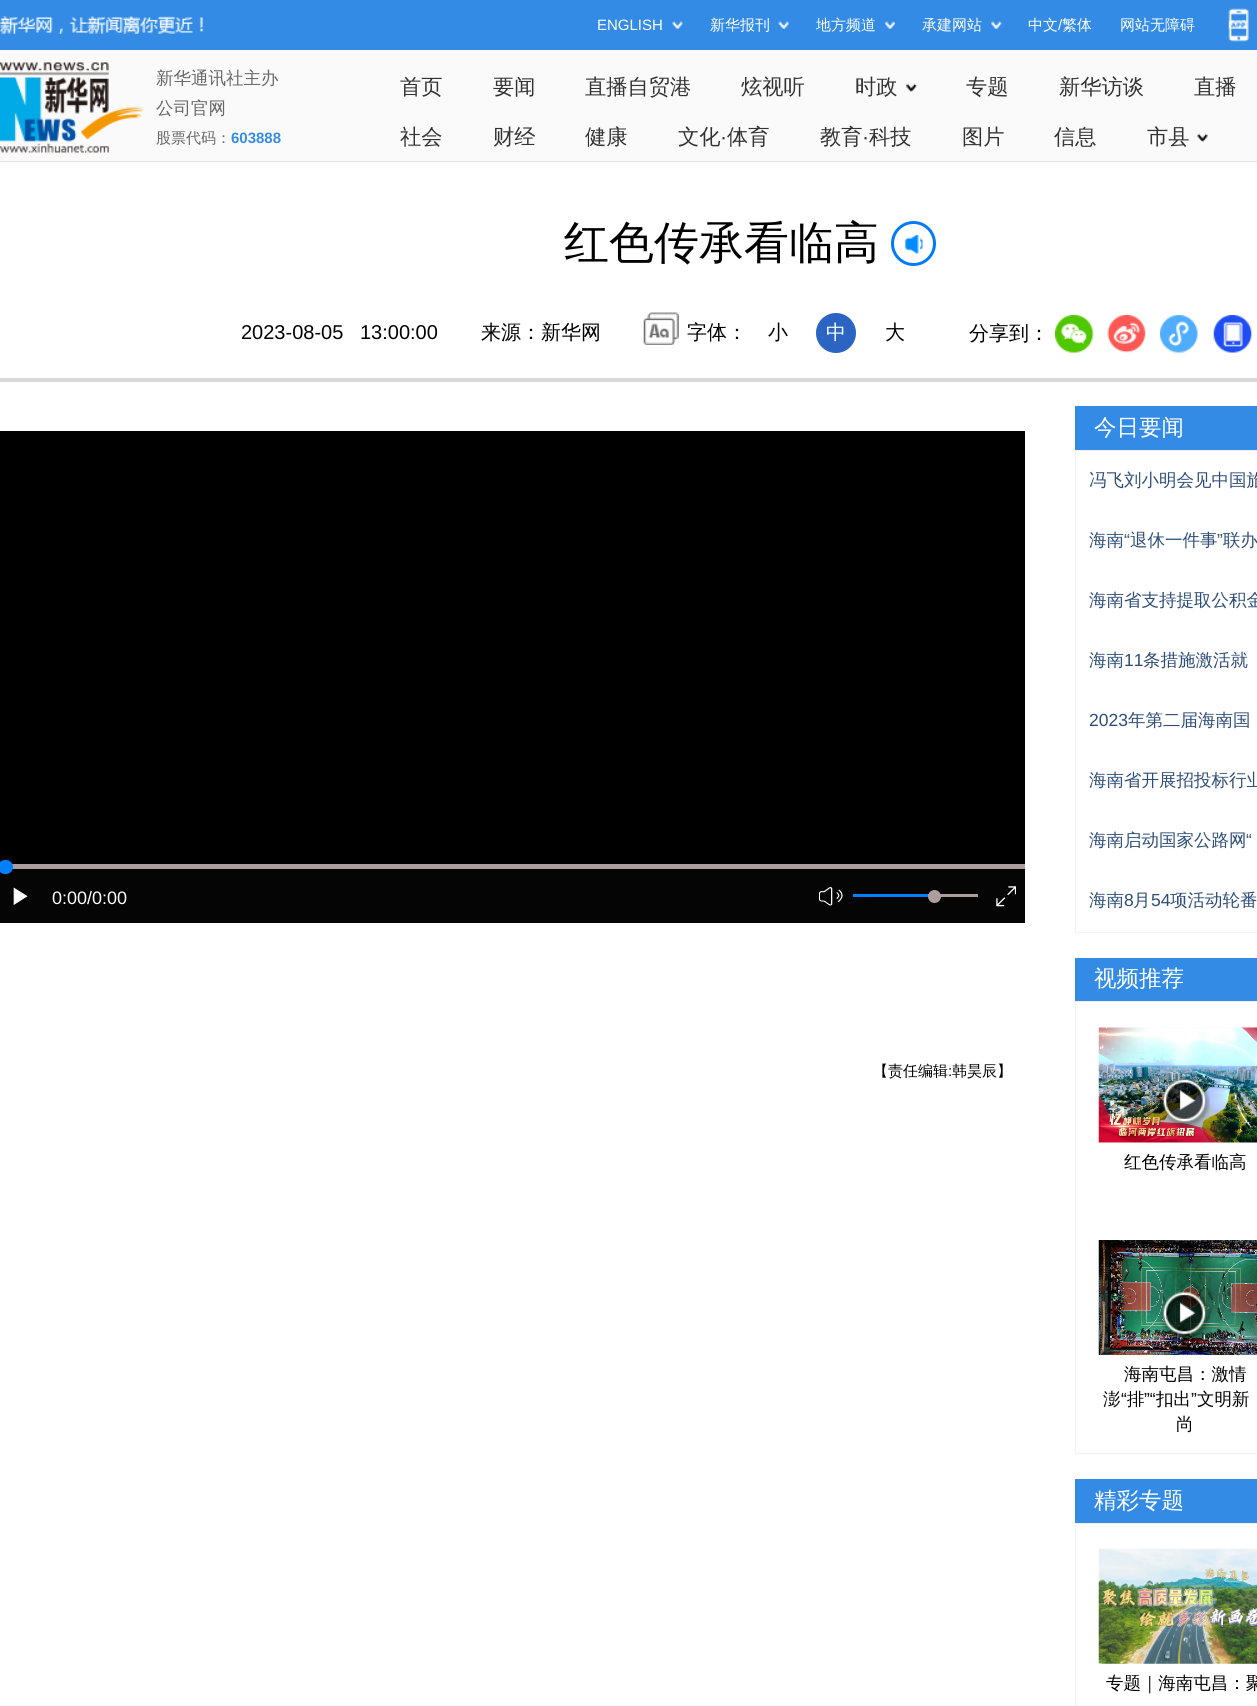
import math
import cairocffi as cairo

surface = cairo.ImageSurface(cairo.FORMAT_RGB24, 1257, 1706)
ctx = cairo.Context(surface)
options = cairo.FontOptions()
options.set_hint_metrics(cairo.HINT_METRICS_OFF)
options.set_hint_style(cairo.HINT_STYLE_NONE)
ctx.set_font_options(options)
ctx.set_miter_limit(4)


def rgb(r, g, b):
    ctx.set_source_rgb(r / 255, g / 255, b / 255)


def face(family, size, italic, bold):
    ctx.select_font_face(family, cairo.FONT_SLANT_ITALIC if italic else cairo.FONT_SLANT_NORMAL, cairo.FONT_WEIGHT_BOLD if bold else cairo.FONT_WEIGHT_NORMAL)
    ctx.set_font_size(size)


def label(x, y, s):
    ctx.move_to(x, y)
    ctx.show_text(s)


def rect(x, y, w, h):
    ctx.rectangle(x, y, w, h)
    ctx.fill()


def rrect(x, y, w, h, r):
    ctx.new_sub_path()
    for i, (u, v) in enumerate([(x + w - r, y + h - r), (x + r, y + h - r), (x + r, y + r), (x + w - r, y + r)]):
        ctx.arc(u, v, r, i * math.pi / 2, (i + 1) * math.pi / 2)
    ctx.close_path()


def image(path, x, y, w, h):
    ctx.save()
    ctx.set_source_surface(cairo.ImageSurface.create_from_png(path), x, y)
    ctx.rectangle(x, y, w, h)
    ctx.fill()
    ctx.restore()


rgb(255, 255, 255)
ctx.paint()
rgb(51, 139, 230)
rect(0, 0, 1257, 50)
image('image0.png', 0, 16, 204, 18)
face('Liberation Sans', 15, 0, 0)
rgb(255, 255, 255)
label(597, 30, 'ENGLISH')
image('image1.png', 672, 21, 11, 8)
face('WenQuanYi Zen Hei Medium', 15, 0, 0)
label(710, 30, '新华报刊')
image('image2.png', 778, 21, 11, 8)
label(816, 30, '地方频道')
image('image3.png', 885, 21, 10, 8)
label(922, 30, '承建网站')
image('image4.png', 991, 21, 11, 8)
label(1028, 30, '中文')
face('Liberation Sans', 15, 0, 0)
label(1058, 30, '/')
face('WenQuanYi Zen Hei Medium', 15, 0, 0)
label(1062, 30, '繁体')
label(1120, 30, '网站无障碍')
image('image5.png', 1228, 8, 21, 34)
rgb(250, 250, 250)
rect(0, 50, 1257, 113)
rgb(228, 228, 228)
rect(0, 161, 1257, 1)
image('image6.png', 0, 62, 144, 91)
face('WenQuanYi Zen Hei Medium', 17.5, 0, 0)
rgb(102, 102, 102)
label(156, 84, '新华通讯社主办')
label(156, 114, '公司官网')
face('WenQuanYi Zen Hei Medium', 15, 0, 0)
label(156, 143, '股票代码：')
face('Liberation Sans', 15, 0, 1)
rgb(55, 141, 228)
label(231, 143, '603888')
face('WenQuanYi Zen Hei Medium', 21.25, 0, 0)
rgb(51, 51, 51)
label(400, 94, '首页')
label(493, 94, '要闻')
label(585, 94, '直播自贸港')
label(741, 94, '炫视听')
label(855, 94, '时政')
image('image7.png', 906, 83, 11, 9)
label(966, 94, '专题')
label(1059, 94, '新华访谈')
label(1194, 94, '直播')
label(400, 144, '社会')
label(493, 144, '财经')
label(585, 144, '健康')
label(678, 144, '文化')
face('Liberation Sans', 21.25, 0, 0)
label(720, 144, '·')
face('WenQuanYi Zen Hei Medium', 21.25, 0, 0)
label(727, 144, '体育')
label(820, 144, '教育')
face('Liberation Sans', 21.25, 0, 0)
label(862, 144, '·')
face('WenQuanYi Zen Hei Medium', 21.25, 0, 0)
label(869, 144, '科技')
label(962, 144, '图片')
label(1054, 144, '信息')
label(1147, 144, '市县')
image('image8.png', 1197, 133, 11, 9)
rgb(217, 217, 217)
rect(0, 378, 1257, 4)
face('WenQuanYi Zen Hei Medium', 45, 0, 0)
rgb(0, 0, 0)
label(564, 258, '红色传承看临高')
ctx.new_path()
ctx.arc(913.5, 243.5, 21, 0, 2 * math.pi)
rgb(2, 123, 251)
ctx.set_line_width(3)
ctx.stroke()
image('image9.png', 904, 234, 19, 20)
face('Liberation Sans', 20, 0, 0)
rgb(0, 0, 0)
label(241, 339, '2023-08-05   13:00:00')
face('WenQuanYi Zen Hei Medium', 20, 0, 0)
label(481, 339, '来源：新华网')
image('image10.png', 643, 312, 36, 33)
label(687, 339, '字体：')
label(768, 339, '小')
rgb(44, 100, 195)
ctx.new_path()
ctx.arc(836, 333, 20, 0, 2 * math.pi)
ctx.fill()
rgb(255, 255, 255)
label(826, 339, '中')
rgb(0, 0, 0)
label(885, 339, '大')
label(969, 340, '分享到：')
image('image11.png', 1055, 315, 39, 38)
image('image12.png', 1107, 315, 39, 38)
image('image13.png', 1160, 315, 38, 38)
image('image14.png', 1213, 315, 39, 38)
rect(0, 431, 1025, 433)
rgb(5, 5, 5)
rect(0, 869, 1025, 54)
rgb(173, 158, 158)
rect(12, 864, 1013, 5)
rgb(0, 127, 255)
rrect(-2, 860, 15, 14, 7)
ctx.fill()
image('image15.png', 13, 887, 15, 18)
face('Liberation Sans', 18, 0, 0)
rgb(255, 255, 255)
label(52, 904, '0:00/0:00')
image('image16.png', 819, 887, 24, 19)
rgb(173, 158, 158)
rect(928, 894, 50, 3)
rgb(0, 127, 255)
rect(853, 894, 75, 3)
rgb(173, 158, 158)
ctx.arc(934.5, 896.5, 6.5, 0, 2 * math.pi)
ctx.fill()
image('image17.png', 996, 886, 20, 21)
face('WenQuanYi Zen Hei Medium', 15, 0, 0)
rgb(0, 0, 0)
label(873, 1076, '【责任编辑')
face('Liberation Sans', 15, 0, 0)
label(948, 1076, ':')
face('WenQuanYi Zen Hei Medium', 15, 0, 0)
label(952, 1076, '韩昊辰】')
rgb(51, 139, 230)
rect(1075, 406, 182, 44)
face('WenQuanYi Zen Hei Medium', 22.5, 0, 0)
rgb(255, 255, 255)
label(1094, 435, '今日要闻')
ctx.rectangle(1075.5, 450.5, 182, 482)
rgb(242, 242, 242)
ctx.set_line_width(1)
ctx.stroke()
face('WenQuanYi Zen Hei Medium', 17.5, 0, 0)
rgb(45, 77, 120)
label(1089, 486, '冯飞刘小明会见中国旅')
label(1089, 546, '海南')
face('Liberation Sans', 17.5, 0, 0)
label(1124, 546, '“')
face('WenQuanYi Zen Hei Medium', 17.5, 0, 0)
label(1130, 546, '退休一件事')
face('Liberation Sans', 17.5, 0, 0)
label(1217, 546, '”')
face('WenQuanYi Zen Hei Medium', 17.5, 0, 0)
label(1223, 546, '联办')
label(1089, 606, '海南省支持提取公积金')
label(1089, 666, '海南')
face('Liberation Sans', 17.5, 0, 0)
label(1124, 666, '11')
face('WenQuanYi Zen Hei Medium', 17.5, 0, 0)
label(1143, 666, '条措施激活就')
face('Liberation Sans', 17.5, 0, 0)
label(1089, 726, '2023')
face('WenQuanYi Zen Hei Medium', 17.5, 0, 0)
label(1128, 726, '年第二届海南国')
label(1089, 786, '海南省开展招投标行业')
label(1089, 846, '海南启动国家公路网')
face('Liberation Sans', 17.5, 0, 0)
label(1246, 846, '“')
face('WenQuanYi Zen Hei Medium', 17.5, 0, 0)
label(1089, 906, '海南')
face('Liberation Sans', 17.5, 0, 0)
label(1124, 906, '8')
face('WenQuanYi Zen Hei Medium', 17.5, 0, 0)
label(1133, 906, '月')
face('Liberation Sans', 17.5, 0, 0)
label(1151, 906, '54')
face('WenQuanYi Zen Hei Medium', 17.5, 0, 0)
label(1170, 906, '项活动轮番')
rgb(51, 139, 230)
rect(1075, 958, 182, 43)
face('WenQuanYi Zen Hei Medium', 22.5, 0, 0)
rgb(255, 255, 255)
label(1094, 986, '视频推荐')
ctx.rectangle(1075.5, 1001.5, 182, 452)
rgb(242, 242, 242)
ctx.stroke()
image('image18.png', 1098, 1027, 159, 116)
image('image19.png', 1161, 1078, 49, 50)
face('WenQuanYi Zen Hei Medium', 17.5, 0, 0)
rgb(0, 0, 0)
label(1124, 1168, '红色传承看临高')
image('image20.png', 1098, 1240, 159, 115)
image('image21.png', 1160, 1290, 50, 50)
label(1124, 1380, '海南屯昌：激情')
label(1103, 1405, '澎')
face('Liberation Sans', 17.5, 0, 0)
label(1121, 1405, '“')
face('WenQuanYi Zen Hei Medium', 17.5, 0, 0)
label(1127, 1405, '排')
face('Liberation Sans', 17.5, 0, 0)
label(1144, 1405, '”“')
face('WenQuanYi Zen Hei Medium', 17.5, 0, 0)
label(1156, 1405, '扣出')
face('Liberation Sans', 17.5, 0, 0)
label(1191, 1405, '”')
face('WenQuanYi Zen Hei Medium', 17.5, 0, 0)
label(1197, 1405, '文明新')
label(1176, 1430, '尚')
rgb(51, 139, 230)
rect(1075, 1479, 182, 44)
face('WenQuanYi Zen Hei Medium', 22.5, 0, 0)
rgb(255, 255, 255)
label(1094, 1508, '精彩专题')
ctx.rectangle(1075.5, 1523.5, 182, 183)
rgb(242, 242, 242)
ctx.stroke()
image('image22.png', 1098, 1548, 159, 116)
face('WenQuanYi Zen Hei Medium', 17.5, 0, 0)
rgb(0, 0, 0)
label(1106, 1689, '专题｜海南屯昌：聚')
surface.write_to_png('render.png')
